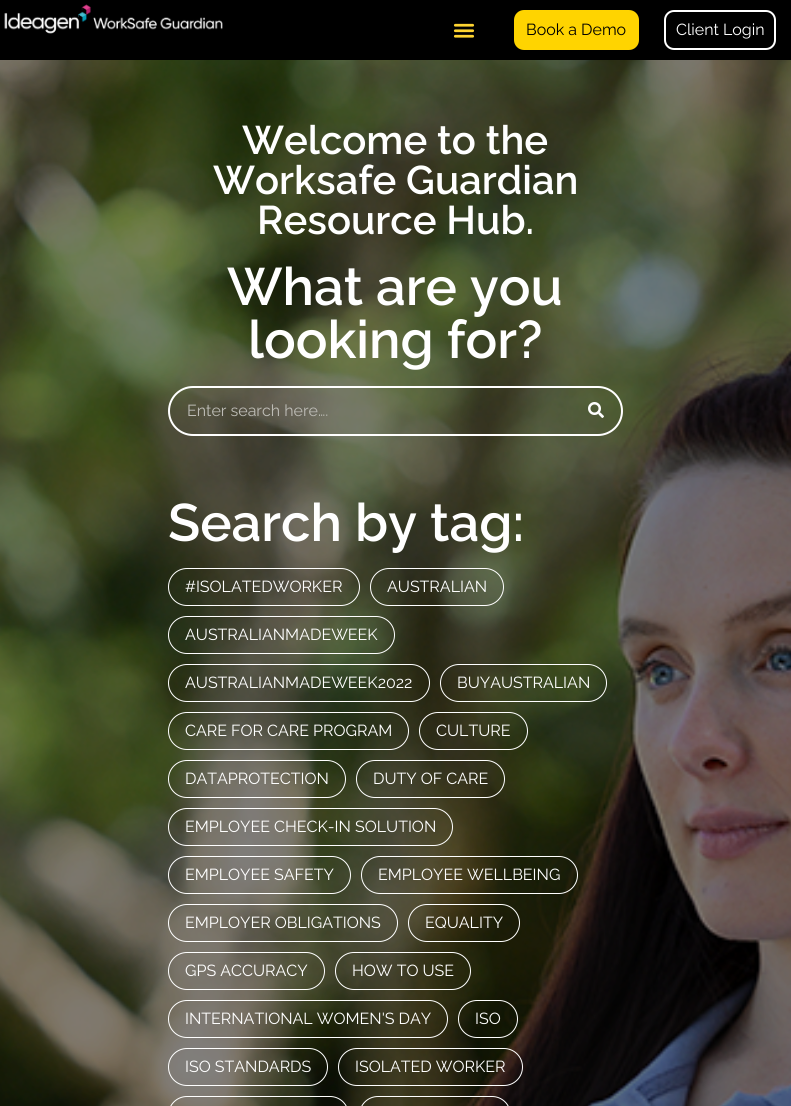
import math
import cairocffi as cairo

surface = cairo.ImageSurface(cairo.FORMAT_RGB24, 791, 1106)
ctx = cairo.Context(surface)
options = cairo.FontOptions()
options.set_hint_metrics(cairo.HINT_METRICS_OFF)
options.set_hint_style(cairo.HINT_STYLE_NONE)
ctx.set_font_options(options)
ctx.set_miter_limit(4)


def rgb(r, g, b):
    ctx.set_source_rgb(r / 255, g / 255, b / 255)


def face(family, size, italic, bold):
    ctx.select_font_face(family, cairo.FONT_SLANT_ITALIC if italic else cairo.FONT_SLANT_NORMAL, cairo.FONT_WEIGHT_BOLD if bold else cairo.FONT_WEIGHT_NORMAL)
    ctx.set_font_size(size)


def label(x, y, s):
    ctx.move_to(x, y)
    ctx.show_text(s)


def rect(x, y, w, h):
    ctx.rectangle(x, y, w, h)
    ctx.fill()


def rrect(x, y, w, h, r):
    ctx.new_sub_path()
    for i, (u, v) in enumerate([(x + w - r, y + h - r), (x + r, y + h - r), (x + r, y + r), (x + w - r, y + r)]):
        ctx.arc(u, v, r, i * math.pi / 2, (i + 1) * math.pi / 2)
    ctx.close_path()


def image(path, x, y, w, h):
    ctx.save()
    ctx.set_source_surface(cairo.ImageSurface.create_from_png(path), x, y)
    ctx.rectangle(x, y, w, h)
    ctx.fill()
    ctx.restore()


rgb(255, 255, 255)
ctx.paint()
rgb(0, 0, 0)
rect(0, 0, 791, 60)
image('image0.png', 4, 4, 219, 30)
image('image1.png', 453, 23, 22, 15)
rgb(255, 212, 0)
rrect(515, 11, 123, 38, 9)
ctx.fill_preserve()
ctx.stroke()
face('Raleway', 16, 0, 0)
rgb(0, 0, 0)
label(526, 35, 'Book a Demo')
rrect(665, 11, 110, 38, 9)
rgb(255, 255, 255)
ctx.stroke()
label(676, 35, 'Client Login')
image('image2.png', 0, 60, 791, 1046)
face('Raleway SemiBold', 40, 0, 0)
label(242, 154, 'Welcome to the')
label(213, 194, 'Worksafe Guardian')
label(257, 234, 'Resource Hub.')
face('Raleway SemiBold', 52.75, 0, 0)
label(227, 305, 'What are you')
label(248, 358, 'looking for?')
rrect(169, 387, 453, 48, 24)
ctx.stroke()
face('Raleway', 16, 0, 0)
rgb(189, 188, 182)
label(187, 416, 'Enter search here….')
image('image3.png', 588, 402, 16, 16)
face('Raleway SemiBold', 52.75, 0, 0)
rgb(255, 255, 255)
label(168, 541, 'Search by tag:')
rrect(168.5, 568.5, 191, 37, 18.5)
ctx.set_line_width(1)
ctx.stroke()
face('Raleway', 16, 0, 0)
label(185, 592, '#ISOLATEDWORKER')
rrect(370.5, 568.5, 133, 37, 18.5)
ctx.stroke()
label(387, 592, 'AUSTRALIAN')
rrect(168.5, 616.5, 226, 37, 18.5)
ctx.stroke()
label(185, 640, 'AUSTRALIANMADEWEEK')
rrect(168.5, 664.5, 261, 37, 18.5)
ctx.stroke()
label(185, 688, 'AUSTRALIANMADEWEEK2022')
rrect(440.5, 664.5, 166, 37, 18.5)
ctx.stroke()
label(457, 688, 'BUYAUSTRALIAN')
rrect(168.5, 712.5, 240, 37, 18.5)
ctx.stroke()
label(185, 736, 'CARE FOR CARE PROGRAM')
rrect(419.5, 712.5, 108, 37, 18.5)
ctx.stroke()
label(436, 736, 'CULTURE')
rrect(168.5, 760.5, 177, 37, 18.5)
ctx.stroke()
label(185, 784, 'DATAPROTECTION')
rrect(356.5, 760.5, 148, 37, 18.5)
ctx.stroke()
label(373, 784, 'DUTY OF CARE')
rrect(168.5, 808.5, 284, 37, 18.5)
ctx.stroke()
label(185, 832, 'EMPLOYEE CHECK-IN SOLUTION')
rrect(168.5, 856.5, 182, 37, 18.5)
ctx.stroke()
label(185, 880, 'EMPLOYEE SAFETY')
rrect(361.5, 856.5, 216, 37, 18.5)
ctx.stroke()
label(378, 880, 'EMPLOYEE WELLBEING')
rrect(168.5, 904.5, 229, 37, 18.5)
ctx.stroke()
label(185, 928, 'EMPLOYER OBLIGATIONS')
rrect(408.5, 904.5, 111, 37, 18.5)
ctx.stroke()
label(425, 928, 'EQUALITY')
rrect(168.5, 952.5, 156, 37, 18.5)
ctx.stroke()
label(185, 976, 'GPS ACCURACY')
rrect(335.5, 952.5, 135, 37, 18.5)
ctx.stroke()
label(352, 976, 'HOW TO USE')
rrect(168.5, 1000.5, 279, 37, 18.5)
ctx.stroke()
label(185, 1024, 'INTERNATIONAL WOMEN\'S DAY')
rrect(458.5, 1000.5, 59, 37, 18.5)
ctx.stroke()
label(475, 1024, 'ISO')
rrect(168.5, 1048.5, 159, 37, 18.5)
ctx.stroke()
label(185, 1072, 'ISO STANDARDS')
rrect(338.5, 1048.5, 184, 37, 18.5)
ctx.stroke()
label(355, 1072, 'ISOLATED WORKER')
rrect(168.5, 1096.5, 180, 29, 18.5)
ctx.stroke()
rrect(359.5, 1096.5, 151, 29, 18.5)
ctx.stroke()
surface.write_to_png('render.png')
